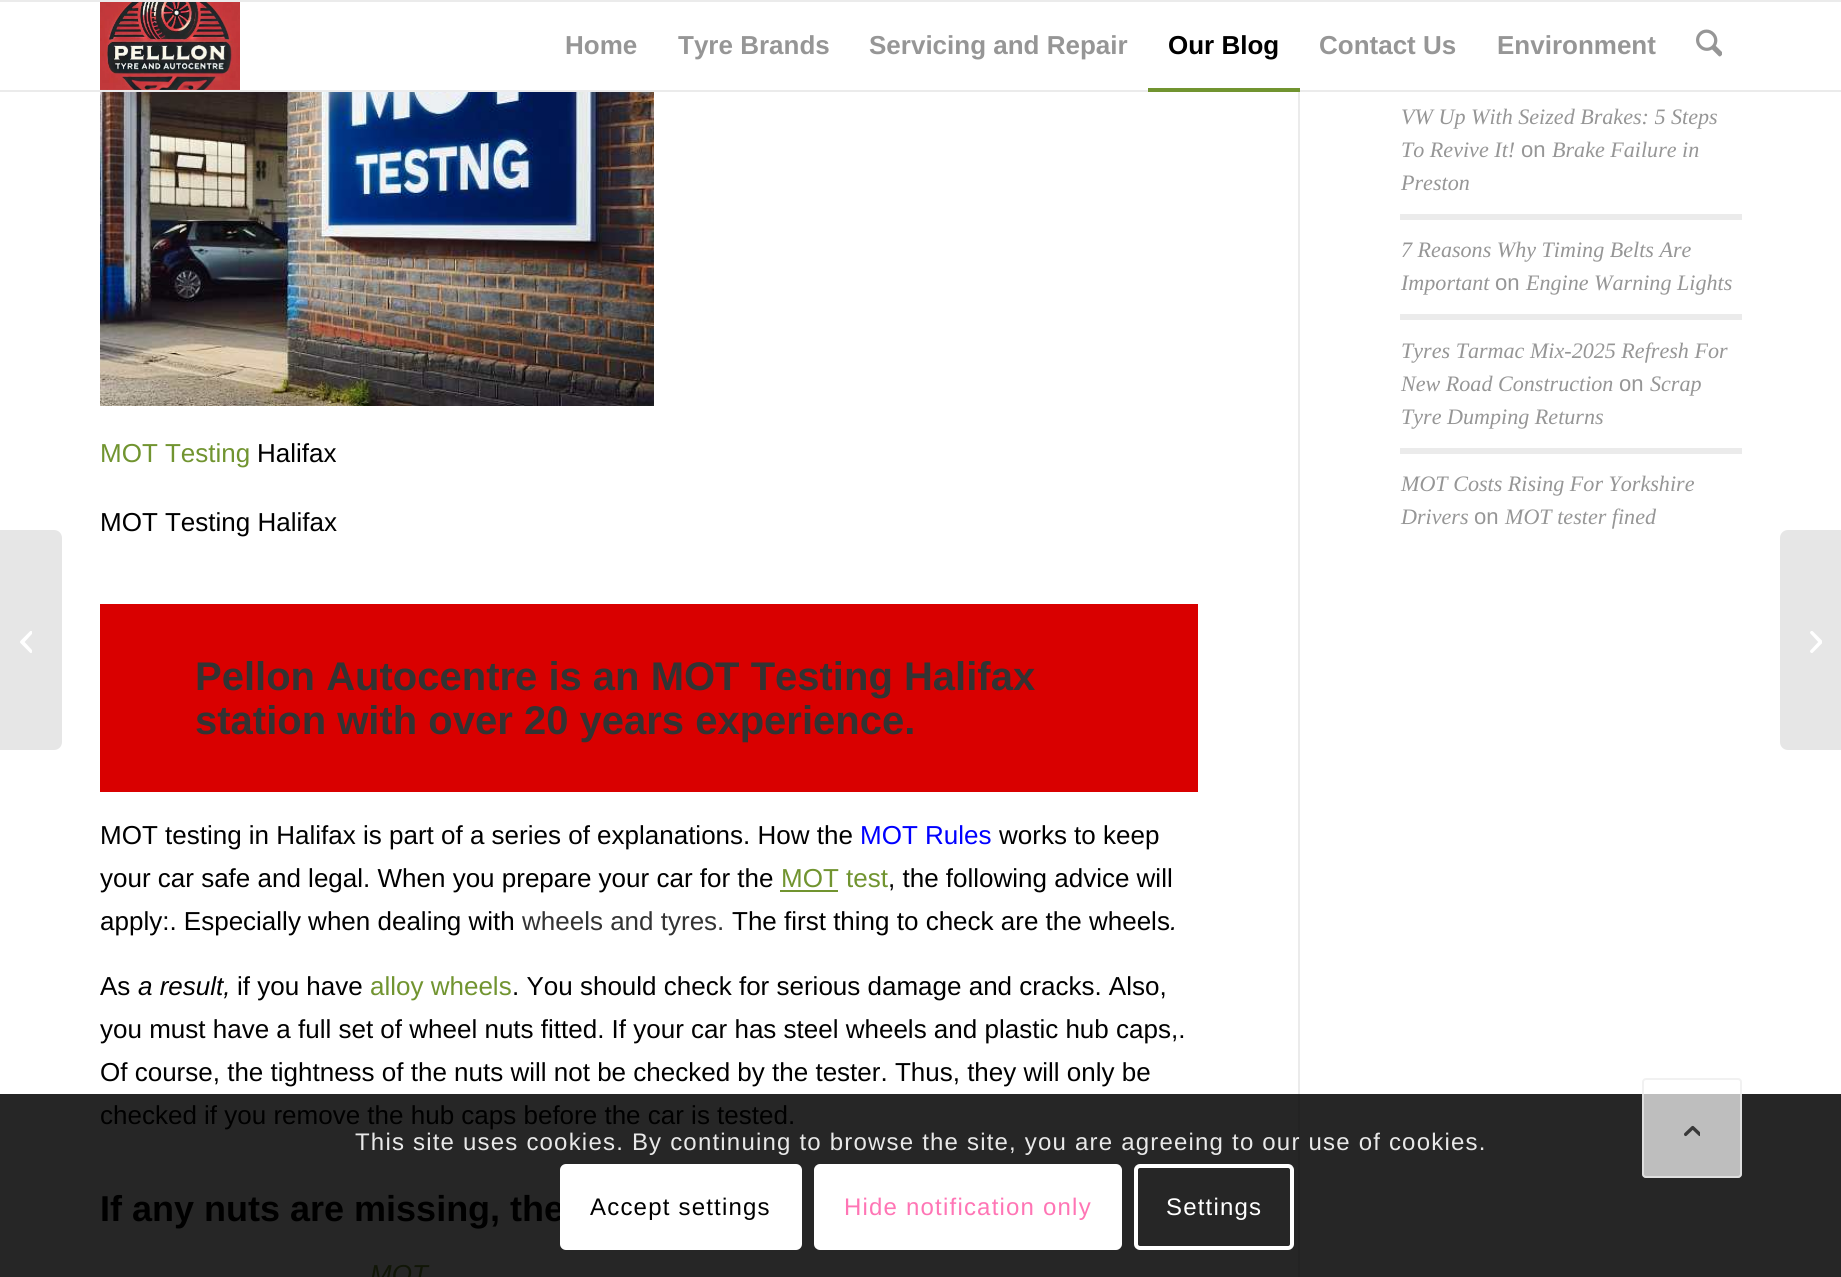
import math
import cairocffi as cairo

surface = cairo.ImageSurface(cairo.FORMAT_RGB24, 1841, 1277)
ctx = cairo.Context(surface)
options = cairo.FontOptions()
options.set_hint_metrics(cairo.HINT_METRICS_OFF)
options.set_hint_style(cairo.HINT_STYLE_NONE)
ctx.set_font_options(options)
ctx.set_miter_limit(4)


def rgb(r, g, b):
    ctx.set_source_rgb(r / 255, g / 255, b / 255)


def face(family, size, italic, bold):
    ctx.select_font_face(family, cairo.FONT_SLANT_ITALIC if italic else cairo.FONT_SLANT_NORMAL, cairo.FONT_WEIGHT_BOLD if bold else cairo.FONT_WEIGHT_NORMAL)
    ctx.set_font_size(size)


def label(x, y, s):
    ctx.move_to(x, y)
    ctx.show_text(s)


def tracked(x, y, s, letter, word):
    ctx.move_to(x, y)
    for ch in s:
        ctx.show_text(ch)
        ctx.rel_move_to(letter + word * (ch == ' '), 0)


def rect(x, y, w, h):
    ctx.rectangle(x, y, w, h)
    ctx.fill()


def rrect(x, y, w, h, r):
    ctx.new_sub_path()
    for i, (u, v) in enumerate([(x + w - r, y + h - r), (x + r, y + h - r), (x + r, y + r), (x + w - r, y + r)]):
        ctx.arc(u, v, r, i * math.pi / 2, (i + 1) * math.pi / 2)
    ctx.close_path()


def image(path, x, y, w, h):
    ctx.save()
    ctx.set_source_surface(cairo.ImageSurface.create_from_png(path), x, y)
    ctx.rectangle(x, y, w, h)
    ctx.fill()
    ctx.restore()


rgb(255, 255, 255)
ctx.paint()
rgb(235, 235, 235)
rect(0, 0, 1841, 2)
rect(0, 90, 1841, 2)
image('image0.png', 100, 2, 140, 88)
face('Liberation Sans', 26, 0, 1)
rgb(150, 150, 150)
label(565, 54, 'Home')
label(678, 54, 'Tyre Brands')
label(869, 54, 'Servicing and Repair')
rgb(0, 0, 0)
label(1168, 54, 'Our Blog')
rgb(113, 148, 48)
rect(1148, 88, 152, 4)
rgb(150, 150, 150)
label(1319, 54, 'Contact Us')
label(1497, 54, 'Environment')
image('image1.png', 1696, 29, 26, 28)
rgb(230, 230, 230)
ctx.new_path()
ctx.move_to(0, 530)
ctx.line_to(54, 530)
ctx.curve_to(58.5, 530, 62, 533.5, 62, 538)
ctx.line_to(62, 742)
ctx.curve_to(62, 746.5, 58.5, 750, 54, 750)
ctx.line_to(0, 750)
ctx.close_path()
ctx.fill()
image('image2.png', 20, 631, 12, 22)
rgb(38, 38, 38)
rect(0, 1094, 1841, 183)
face('Liberation Serif', 22.1, 1, 0)
rgb(150, 150, 150)
label(1401, 124, 'VW Up With Seized Brakes: 5 Steps')
label(1401, 157, 'To Revive It!')
face('Liberation Sans', 22.1, 0, 0)
label(1521, 157, 'on')
face('Liberation Serif', 22.1, 1, 0)
label(1552, 157, 'Brake Failure in')
label(1401, 190, 'Preston')
rgb(235, 235, 235)
rect(1400, 214, 342, 6)
rgb(150, 150, 150)
label(1401, 257, '7 Reasons Why Timing Belts Are')
label(1401, 290, 'Important')
face('Liberation Sans', 22.1, 0, 0)
label(1495, 290, 'on')
face('Liberation Serif', 22.1, 1, 0)
label(1526, 290, 'Engine Warning Lights')
rgb(235, 235, 235)
rect(1400, 314, 342, 6)
rgb(150, 150, 150)
label(1401, 358, 'Tyres Tarmac Mix-2025 Refresh For')
label(1401, 391, 'New Road Construction')
face('Liberation Sans', 22.1, 0, 0)
label(1619, 391, 'on')
face('Liberation Serif', 22.1, 1, 0)
label(1650, 391, 'Scrap')
label(1401, 424, 'Tyre Dumping Returns')
rgb(235, 235, 235)
rect(1400, 448, 342, 6)
rgb(150, 150, 150)
label(1401, 491, 'MOT Costs Rising For Yorkshire')
label(1401, 524, 'Drivers')
face('Liberation Sans', 22.1, 0, 0)
label(1474, 524, 'on')
face('Liberation Serif', 22.1, 1, 0)
label(1505, 524, 'MOT tester fined')
rgb(235, 235, 235)
rect(1298, 92, 2, 1002)
rgb(35, 35, 35)
rect(1298, 1094, 2, 183)
image('image3.png', 100, 92, 554, 314)
face('Liberation Sans', 26, 0, 0)
rgb(113, 148, 48)
label(100, 462, 'MOT Testing')
rgb(0, 0, 0)
label(257, 462, 'Halifax')
label(100, 531, 'MOT Testing Halifax')
rgb(217, 0, 0)
rect(100, 604, 1098, 188)
face('Liberation Sans', 40, 0, 1)
rgb(51, 51, 51)
label(195, 690, 'Pellon Autocentre is an MOT Testing Halifax')
label(195, 734, 'station with over 20 years experience.')
face('Liberation Sans', 26, 0, 0)
rgb(0, 0, 0)
label(100, 844, 'MOT testing in Halifax is part of a series of explanations. How the')
rgb(0, 0, 255)
label(860, 844, 'MOT Rules')
rgb(0, 0, 0)
label(999, 844, 'works to keep')
label(100, 887, 'your car safe and legal. When you prepare your car for the')
rgb(113, 148, 48)
label(781, 887, 'MOT test')
rect(780, 890, 58, 2)
rgb(0, 0, 0)
label(888, 887, ', the following advice will')
label(100, 930, 'apply:. Especially when dealing with')
rgb(51, 51, 51)
label(522, 930, 'wheels and tyres.')
rgb(0, 0, 0)
label(732, 930, 'The first thing to check are the wheels')
face('Liberation Sans', 26, 1, 0)
label(1170, 930, '.')
face('Liberation Sans', 26, 0, 0)
label(100, 995, 'As')
face('Liberation Sans', 26, 1, 0)
label(138, 995, 'a result,')
face('Liberation Sans', 26, 0, 0)
label(237, 995, 'if you have')
rgb(113, 148, 48)
label(370, 995, 'alloy wheels')
rgb(0, 0, 0)
label(512, 995, '. You should check for serious damage and cracks. Also,')
label(100, 1038, 'you must have a full set of wheel nuts fitted. If your car has steel wheels and plastic hub caps,.')
label(100, 1081, 'Of course, the tightness of the nuts will not be checked by the tester. Thus, they will only be')
label(100, 1124, 'checked if you remove the hub caps before the car is tested.')
face('Liberation Sans', 36, 0, 1)
label(100, 1221, 'If any nuts are missing, the')
face('Liberation Sans', 26, 1, 0)
rgb(17, 22, 7)
label(370, 1283, 'MOT')
rgb(230, 230, 230)
ctx.new_path()
ctx.move_to(1788, 530)
ctx.line_to(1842, 530)
ctx.line_to(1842, 750)
ctx.line_to(1788, 750)
ctx.curve_to(1783.5, 750, 1780, 746.5, 1780, 742)
ctx.line_to(1780, 538)
ctx.curve_to(1780, 533.5, 1783.5, 530, 1788, 530)
ctx.close_path()
ctx.fill()
image('image4.png', 1810, 631, 12, 22)
face('Liberation Sans', 24, 0, 0)
rgb(233, 233, 233)
tracked(355, 1150, 'This site uses cookies. By continuing to browse the site, you are agreeing to our use of cookies.', 1.2, 0)
rgb(255, 255, 255)
rrect(560, 1164, 242, 86, 6)
ctx.fill()
rgb(0, 0, 0)
tracked(590, 1215, 'Accept settings', 1.2, 0)
rgb(255, 255, 255)
rrect(816, 1166, 304, 82, 4)
ctx.fill_preserve()
ctx.set_line_width(4)
ctx.stroke()
rgb(255, 117, 181)
tracked(844, 1215, 'Hide notification only', 1.2, 0)
rrect(1136, 1166, 156, 82, 4)
rgb(255, 255, 255)
ctx.stroke()
tracked(1166, 1215, 'Settings', 1.2, 0)
ctx.set_source_rgba(1, 1, 1, 0.7)
rrect(1642, 1078, 100, 100, 4)
ctx.fill()
rrect(1643, 1079, 98, 98, 3)
ctx.set_source_rgba(0.922, 0.922, 0.922, 0.7)
ctx.set_line_width(2)
ctx.stroke()
image('image5.png', 1684, 1125, 16, 12)
surface.write_to_png('render.png')
